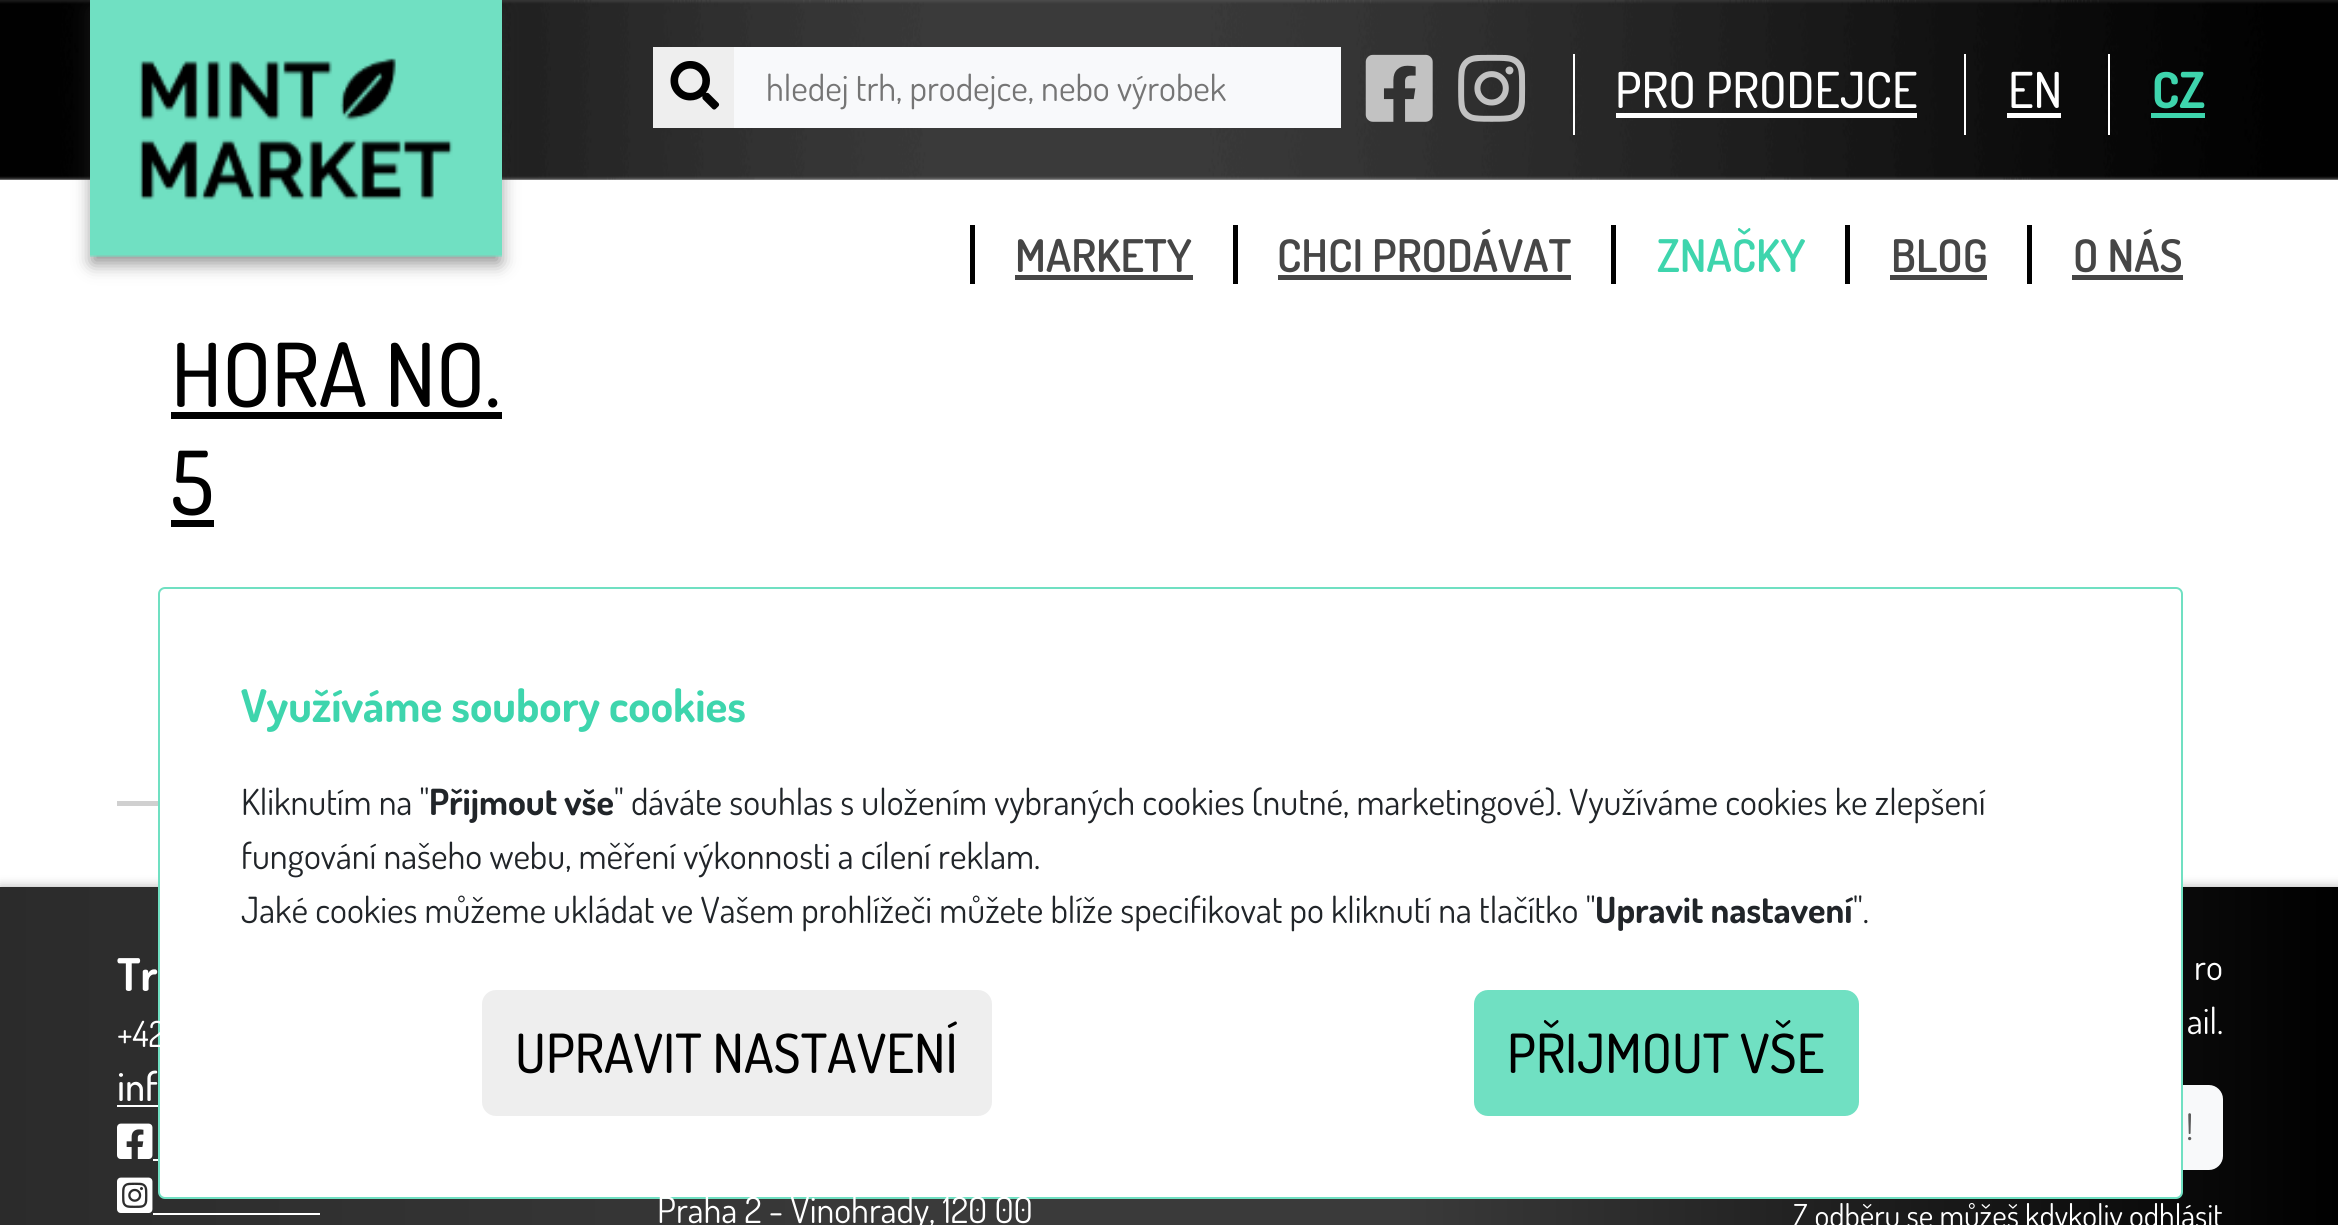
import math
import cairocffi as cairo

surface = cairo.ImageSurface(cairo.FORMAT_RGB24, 2338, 1225)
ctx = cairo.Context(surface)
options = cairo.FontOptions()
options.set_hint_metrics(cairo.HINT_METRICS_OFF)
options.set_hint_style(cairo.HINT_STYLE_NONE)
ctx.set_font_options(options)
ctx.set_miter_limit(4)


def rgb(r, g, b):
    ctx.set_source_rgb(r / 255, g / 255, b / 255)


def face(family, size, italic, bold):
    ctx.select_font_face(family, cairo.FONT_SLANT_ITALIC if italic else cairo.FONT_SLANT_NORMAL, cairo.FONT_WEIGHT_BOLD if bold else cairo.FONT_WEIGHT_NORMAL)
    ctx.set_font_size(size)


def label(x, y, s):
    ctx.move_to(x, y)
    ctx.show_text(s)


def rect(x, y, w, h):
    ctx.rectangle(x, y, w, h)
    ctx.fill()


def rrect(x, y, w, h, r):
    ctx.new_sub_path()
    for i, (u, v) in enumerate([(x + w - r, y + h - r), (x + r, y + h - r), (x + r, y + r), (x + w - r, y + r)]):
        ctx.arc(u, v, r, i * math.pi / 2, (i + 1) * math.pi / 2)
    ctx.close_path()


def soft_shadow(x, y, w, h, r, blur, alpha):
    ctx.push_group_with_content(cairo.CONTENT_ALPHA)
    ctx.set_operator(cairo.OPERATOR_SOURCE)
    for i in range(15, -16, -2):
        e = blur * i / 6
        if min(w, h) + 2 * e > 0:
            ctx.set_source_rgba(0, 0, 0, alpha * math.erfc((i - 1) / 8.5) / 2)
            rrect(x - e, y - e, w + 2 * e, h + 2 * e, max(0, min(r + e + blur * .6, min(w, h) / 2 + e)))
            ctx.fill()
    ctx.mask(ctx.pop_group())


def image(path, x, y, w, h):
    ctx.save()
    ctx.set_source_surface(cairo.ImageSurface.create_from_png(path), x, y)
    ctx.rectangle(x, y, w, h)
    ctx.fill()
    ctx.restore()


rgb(255, 255, 255)
ctx.paint()
image('image0.png', 0, 0, 2338, 180)
rgb(50, 50, 50)
soft_shadow(92, 11, 408, 252, 0, 9, 0.56)
image('image1.png', 90, 0, 412, 257)
rgb(238, 238, 238)
rect(653, 47, 81, 81)
image('image2.png', 670, 61, 50, 49)
rgb(248, 249, 251)
rect(734, 47, 607, 81)
face('Dosis', 36, 0, 0)
rgb(117, 117, 117)
label(766, 101, 'hledej trh, prodejce, nebo výrobek')
image('image3.png', 1365, 54, 68, 68)
image('image4.png', 1458, 54, 68, 68)
face('Dosis Medium', 49.5, 0, 0)
rgb(255, 255, 255)
label(1615, 108, 'PRO PRODEJCE')
rect(1573, 54, 2, 81)
rect(1616, 113, 301, 5)
label(2008, 108, 'EN')
rect(1964, 54, 2, 81)
rect(2007, 113, 54, 5)
face('Dosis', 49.5, 0, 1)
rgb(62, 213, 173)
label(2152, 108, 'CZ')
rgb(255, 255, 255)
rect(2108, 54, 2, 81)
rgb(62, 213, 173)
rect(2151, 113, 54, 5)
rgb(0, 0, 0)
rect(970, 225, 5, 59)
face('Dosis SemiBold', 45, 0, 0)
rgb(70, 70, 70)
label(1015, 272, 'MARKETY')
rect(1015, 275, 178, 5)
rgb(0, 0, 0)
rect(1233, 225, 5, 59)
rgb(70, 70, 70)
label(1277, 272, 'CHCI PRODÁVAT')
rect(1278, 275, 293, 5)
rgb(0, 0, 0)
rect(1611, 225, 5, 59)
rgb(62, 213, 173)
label(1657, 272, 'ZNAČKY')
rgb(0, 0, 0)
rect(1845, 225, 5, 59)
rgb(70, 70, 70)
label(1891, 272, 'BLOG')
rect(1890, 275, 97, 5)
rgb(0, 0, 0)
rect(2027, 225, 5, 59)
rgb(70, 70, 70)
label(2073, 272, 'O NÁS')
rect(2072, 275, 111, 5)
rgb(208, 208, 208)
rect(117, 801, 41, 5)
face('Dosis Medium', 88, 0, 0)
rgb(0, 0, 0)
label(171, 407, 'HORA NO.')
rect(171, 412, 331, 7)
label(171, 515, '5')
rect(171, 520, 43, 7)
rgb(0, 0, 0)
soft_shadow(0, 887, 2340, 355, 0, 5.5, 0.3)
gradient = cairo.LinearGradient(0, 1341, 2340, 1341)
gradient.add_color_stop_rgba(0, 0, 0, 0, 1)
gradient.add_color_stop_rgba(0, 0.169, 0.169, 0.169, 1)
gradient.add_color_stop_rgba(0.4, 0.227, 0.227, 0.227, 1)
gradient.add_color_stop_rgba(0.6, 0.227, 0.227, 0.227, 1)
gradient.add_color_stop_rgba(1, 0, 0, 0, 1)
ctx.set_source(gradient)
rect(0, 887, 2338, 338)
rgb(248, 249, 250)
ctx.new_path()
ctx.move_to(2049, 1086)
ctx.line_to(2209, 1086)
ctx.curve_to(2216, 1086, 2222, 1092, 2222, 1099)
ctx.line_to(2222, 1156)
ctx.curve_to(2222, 1163, 2216, 1169, 2209, 1169)
ctx.line_to(2049, 1169)
ctx.close_path()
ctx.fill_preserve()
ctx.stroke()
rgb(255, 255, 255)
rrect(159, 588, 2023, 610, 6)
ctx.fill_preserve()
rgb(112, 224, 194)
ctx.stroke()
face('Dosis', 45, 0, 1)
rgb(62, 213, 173)
label(241, 722, 'Využíváme soubory cookies')
face('Dosis', 36, 0, 0)
rgb(33, 37, 41)
label(241, 815, 'Kliknutím na "')
face('Dosis', 36, 0, 1)
label(429, 815, 'Přijmout vše')
face('Dosis', 36, 0, 0)
label(614, 815, '" dáváte souhlas s uložením vybraných cookies (nutné, marketingové). Využíváme cookies ke zlepšení')
label(241, 869, 'fungování našeho webu, měření výkonnosti a cílení reklam.')
label(241, 923, 'Jaké cookies můžeme ukládat ve Vašem prohlížeči můžete blíže specifikovat po kliknutí na tlačítko "')
face('Dosis', 36, 0, 1)
label(1595, 923, 'Upravit nastavení')
face('Dosis', 36, 0, 0)
label(1853, 923, '".')
rgb(238, 238, 238)
rrect(482, 990, 510, 126, 14)
ctx.fill()
face('Dosis Medium', 54, 0, 0)
rgb(0, 0, 0)
label(515, 1073, 'UPRAVIT NASTAVENÍ')
rgb(112, 224, 194)
rrect(1474, 990, 385, 126, 14)
ctx.fill()
rgb(0, 0, 0)
label(1507, 1073, 'PŘIJMOUT VŠE')
face('Dosis', 45, 0, 1)
rgb(255, 255, 255)
label(117, 991, 'Tr')
face('Dosis', 36, 0, 0)
label(117, 1047, '+42')
face('Dosis Medium', 40, 0, 0)
label(117, 1101, 'inf')
rect(117, 1105, 41, 2)
image('image5.png', 117, 1123, 36, 36)
rect(153, 1159, 5, 2)
image('image6.png', 117, 1177, 36, 36)
rect(153, 1213, 167, 2)
face('Dosis', 36, 0, 0)
label(657, 1223, 'Praha 2 - Vinohrady, 120 00')
label(2194, 980, 'ro')
label(2187, 1034, 'ail.')
rgb(90, 90, 90)
label(2186, 1140, '!')
face('Dosis', 31.5, 0, 0)
rgb(255, 255, 255)
label(1793, 1227, 'Z odběru se můžeš kdykoliv odhlásit')
surface.write_to_png('render.png')
